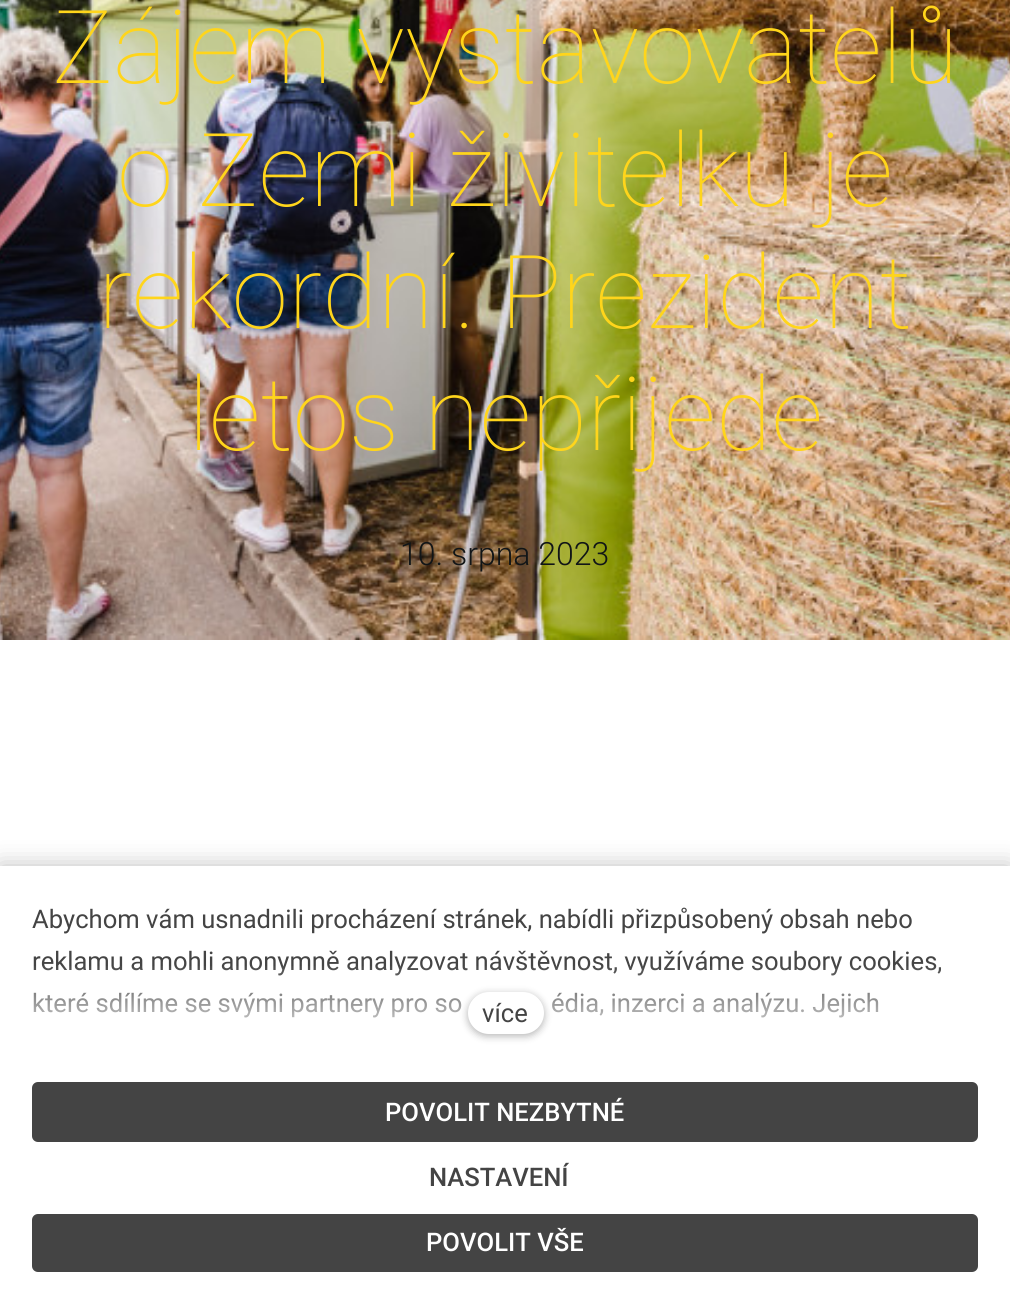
import math
import cairocffi as cairo

surface = cairo.ImageSurface(cairo.FORMAT_RGB24, 1010, 1304)
ctx = cairo.Context(surface)
options = cairo.FontOptions()
options.set_hint_metrics(cairo.HINT_METRICS_OFF)
options.set_hint_style(cairo.HINT_STYLE_NONE)
ctx.set_font_options(options)
ctx.set_miter_limit(4)


def rgb(r, g, b):
    ctx.set_source_rgb(r / 255, g / 255, b / 255)


def face(family, size, italic, bold):
    ctx.select_font_face(family, cairo.FONT_SLANT_ITALIC if italic else cairo.FONT_SLANT_NORMAL, cairo.FONT_WEIGHT_BOLD if bold else cairo.FONT_WEIGHT_NORMAL)
    ctx.set_font_size(size)


def label(x, y, s):
    ctx.move_to(x, y)
    ctx.show_text(s)


def rect(x, y, w, h):
    ctx.rectangle(x, y, w, h)
    ctx.fill()


def rrect(x, y, w, h, r):
    ctx.new_sub_path()
    for i, (u, v) in enumerate([(x + w - r, y + h - r), (x + r, y + h - r), (x + r, y + r), (x + w - r, y + r)]):
        ctx.arc(u, v, r, i * math.pi / 2, (i + 1) * math.pi / 2)
    ctx.close_path()


def soft_shadow(x, y, w, h, r, blur, alpha):
    ctx.push_group_with_content(cairo.CONTENT_ALPHA)
    ctx.set_operator(cairo.OPERATOR_SOURCE)
    for i in range(15, -16, -2):
        e = blur * i / 6
        if min(w, h) + 2 * e > 0:
            ctx.set_source_rgba(0, 0, 0, alpha * math.erfc((i - 1) / 8.5) / 2)
            rrect(x - e, y - e, w + 2 * e, h + 2 * e, max(0, min(r + e + blur * .6, min(w, h) / 2 + e)))
            ctx.fill()
    ctx.mask(ctx.pop_group())


def image(path, x, y, w, h):
    ctx.save()
    ctx.set_source_surface(cairo.ImageSurface.create_from_png(path), x, y)
    ctx.rectangle(x, y, w, h)
    ctx.fill()
    ctx.restore()


rgb(255, 255, 255)
ctx.paint()
image('image0.png', 0, 0, 1010, 640)
face('Roboto Thin', 102, 0, 0)
rgb(255, 213, 27)
label(52, 83, 'Zájem vystavovatelů')
label(117, 206, 'o Zemi živitelku je')
label(98, 328, 'rekordní. Prezident')
label(188, 450, 'letos nepřijede')
face('Roboto Light', 32, 0, 0)
rgb(17, 21, 23)
label(400, 565, '10. srpna 2023')
rgb(0, 0, 0)
soft_shadow(0, 866, 1010, 438, 0, 12, 0.25)
rgb(255, 255, 255)
rect(0, 866, 1010, 438)
face('Roboto', 25.6, 0, 0)
rgb(68, 68, 68)
label(32, 928, 'Abychom vám usnadnili procházení stránek, nabídli přizpůsobený obsah nebo')
label(32, 970, 'reklamu a mohli anonymně analyzovat návštěvnost, využíváme soubory cookies,')
label(32, 1012, 'které sdílíme se svými partnery pro so')
label(551, 1012, 'édia, inzerci a analýzu. Jejich')
gradient = cairo.LinearGradient(505, 1050, 505, 964)
gradient.add_color_stop_rgba(0, 1, 1, 1, 1)
gradient.add_color_stop_rgba(1, 1, 1, 1, 0)
ctx.set_source(gradient)
rect(33, 966, 908, 52)
rgb(0, 0, 0)
soft_shadow(468, 994, 76, 42, 21, 4, 0.3)
rgb(255, 255, 255)
rrect(468, 992, 76, 42, 21)
ctx.fill()
rgb(68, 68, 68)
label(482, 1022, 'více')
rrect(32, 1082, 946, 60, 6)
ctx.fill()
face('Roboto Medium', 25.6, 0, 0)
rgb(255, 255, 255)
label(385, 1121, 'POVOLIT NEZBYTNÉ')
rgb(68, 68, 68)
label(429, 1186, 'NASTAVENÍ')
rrect(32, 1214, 946, 58, 6)
ctx.fill()
rgb(255, 255, 255)
label(426, 1251, 'POVOLIT VŠE')
surface.write_to_png('render.png')
